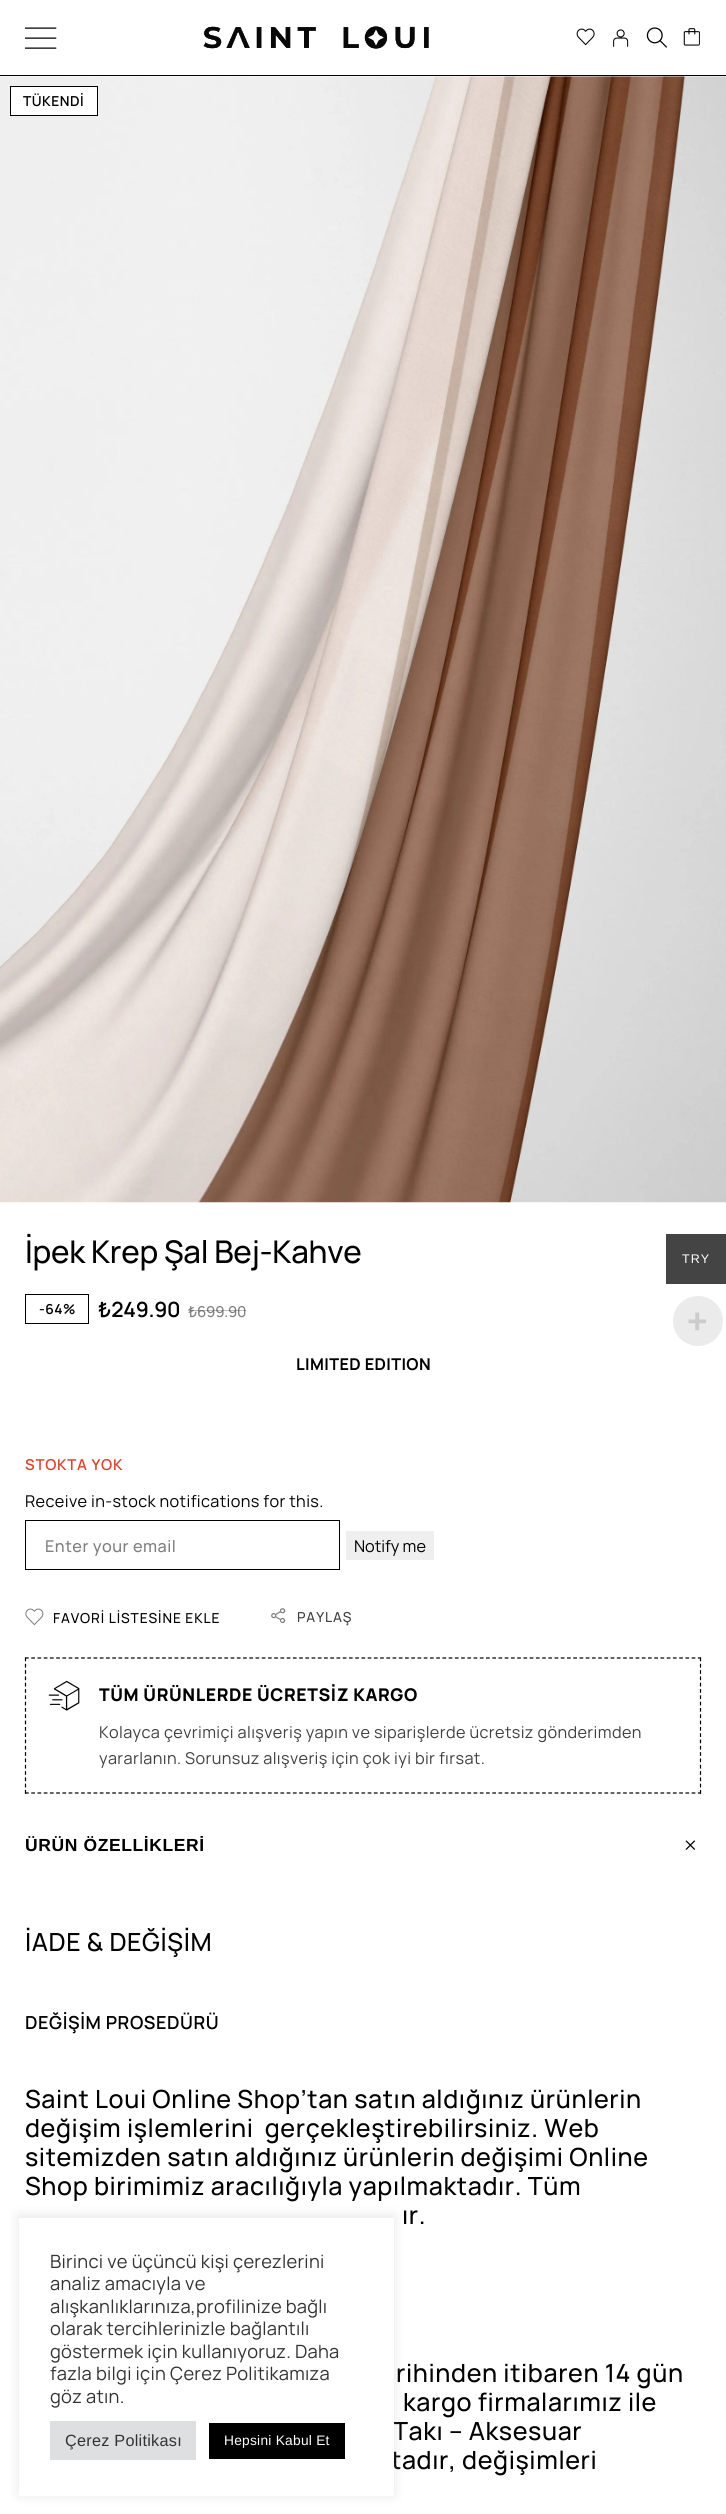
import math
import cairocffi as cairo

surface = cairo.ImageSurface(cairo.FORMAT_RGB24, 726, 2514)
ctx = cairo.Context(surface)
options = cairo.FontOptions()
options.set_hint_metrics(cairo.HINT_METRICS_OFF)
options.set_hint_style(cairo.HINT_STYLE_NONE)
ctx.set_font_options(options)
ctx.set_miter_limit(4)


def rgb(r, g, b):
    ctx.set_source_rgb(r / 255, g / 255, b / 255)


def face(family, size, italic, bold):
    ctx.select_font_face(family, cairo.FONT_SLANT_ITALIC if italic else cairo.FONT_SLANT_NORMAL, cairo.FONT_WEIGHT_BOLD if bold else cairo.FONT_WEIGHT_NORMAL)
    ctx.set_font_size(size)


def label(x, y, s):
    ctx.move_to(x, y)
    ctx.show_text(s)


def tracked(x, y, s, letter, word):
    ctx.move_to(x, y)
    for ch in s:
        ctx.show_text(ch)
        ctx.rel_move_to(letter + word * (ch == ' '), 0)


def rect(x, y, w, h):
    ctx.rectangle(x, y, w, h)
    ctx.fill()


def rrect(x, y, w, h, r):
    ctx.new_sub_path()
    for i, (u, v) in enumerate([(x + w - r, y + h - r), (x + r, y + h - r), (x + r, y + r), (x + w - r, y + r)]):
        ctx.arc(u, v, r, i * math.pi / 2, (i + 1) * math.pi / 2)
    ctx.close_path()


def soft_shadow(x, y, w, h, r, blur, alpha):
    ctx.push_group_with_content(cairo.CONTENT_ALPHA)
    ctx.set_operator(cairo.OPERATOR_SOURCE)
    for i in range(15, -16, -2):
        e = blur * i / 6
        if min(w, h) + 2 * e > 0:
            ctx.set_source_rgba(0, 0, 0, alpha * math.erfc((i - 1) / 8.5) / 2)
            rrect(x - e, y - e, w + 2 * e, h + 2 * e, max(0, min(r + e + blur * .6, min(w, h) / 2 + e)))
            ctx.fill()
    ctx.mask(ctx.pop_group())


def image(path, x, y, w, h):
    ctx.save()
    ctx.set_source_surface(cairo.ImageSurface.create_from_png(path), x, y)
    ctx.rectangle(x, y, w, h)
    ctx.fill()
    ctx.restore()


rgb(255, 255, 255)
ctx.paint()
rgb(0, 0, 0)
rect(0, 75, 726, 1)
image('image0.png', 25, 27, 32, 22)
image('image1.png', 203, 26, 226, 23)
image('image2.png', 576, 28, 19, 18)
image('image3.png', 613, 29, 16, 18)
image('image4.png', 646, 27, 21, 21)
image('image5.png', 683, 28, 17, 18)
image('image6.png', 0, 76, 726, 1127)
rgb(255, 255, 255)
ctx.rectangle(10.5, 86.5, 87, 29)
ctx.fill_preserve()
rgb(0, 0, 0)
ctx.set_line_width(1)
ctx.stroke()
face('Manrope SemiBold', 13.75, 0, 0)
tracked(23, 106, 'TÜKENDİ', 0.5, 0)
face('Manrope Medium', 31.25, 0, 0)
tracked(25, 1263, 'İpek Krep Şal Bej-Kahve', -0.25, 0)
ctx.rectangle(25.5, 1294.5, 63, 29)
ctx.stroke()
face('Manrope SemiBold', 13.75, 0, 0)
tracked(39, 1314, '-64%', 0.5, 0)
face('Manrope SemiBold', 21, 0, 0)
tracked(98, 1317, '₺249.90', -0.25, 0)
face('Manrope Medium', 15, 0, 0)
rgb(128, 128, 128)
tracked(188, 1317, '₺', -0.25, 0)
ctx.set_source_rgba(0, 0, 0, 0.25)
rect(188, 1310, 10, 1)
rgb(128, 128, 128)
tracked(197, 1317, '699.90', -0.25, 0)
ctx.set_source_rgba(0, 0, 0, 0.25)
rect(198, 1310, 48, 1)
face('Manrope', 16.25, 0, 1)
rgb(0, 0, 0)
tracked(296, 1370, 'LIMITED EDITION', 0.37, 0)
face('Manrope SemiBold', 15, 0, 0)
rgb(218, 67, 46)
tracked(25, 1470, 'STOKTA YOK', 0.75, 0)
face('Manrope', 16.25, 0, 0)
rgb(0, 0, 0)
tracked(25, 1507, 'Receive in-stock notifications for this.', 0.37, 0)
ctx.rectangle(25.5, 1520.5, 314, 49)
ctx.stroke()
face('Manrope Medium', 16.25, 0, 0)
rgb(128, 128, 128)
tracked(45, 1552, 'Enter your email', 0.5, 0)
rgb(239, 239, 239)
rect(346, 1531, 88, 29)
face('Manrope', 16.25, 0, 0)
rgb(0, 0, 0)
label(354, 1552, 'Notify me')
image('image7.png', 25, 1608, 19, 18)
face('Manrope Medium', 13.75, 0, 0)
tracked(53, 1623, 'FAVORİ LİSTESİNE EKLE', 0.9, 0)
image('image8.png', 271, 1608, 15, 16)
rgb(64, 64, 64)
tracked(297, 1622, 'PAYLAŞ', 0.9, 0)
ctx.new_path()
ctx.move_to(25, 1658)
ctx.line_to(701, 1658)
rgb(0, 0, 0)
ctx.set_line_width(1.2)
ctx.set_dash([3.75, 2.48])
ctx.stroke()
ctx.new_path()
ctx.move_to(700.5, 1657.5)
ctx.line_to(700.5, 1794)
ctx.set_dash([3.75, 2.56])
ctx.stroke()
ctx.new_path()
ctx.move_to(25, 1793)
ctx.line_to(701, 1793)
ctx.set_dash([3.75, 2.48])
ctx.stroke()
ctx.new_path()
ctx.move_to(25.5, 1657.5)
ctx.line_to(25.5, 1794)
ctx.set_dash([3.75, 2.56])
ctx.stroke()
image('image9.png', 48, 1680, 32, 31)
face('Manrope ExtraBold', 17.5, 0, 0)
tracked(99, 1701, 'TÜM ÜRÜNLERDE ÜCRETSİZ KARGO', 0.6, 0)
face('Manrope', 16.25, 0, 0)
rgb(64, 64, 64)
tracked(99, 1738, 'Kolayca çevrimiçi alışveriş yapın ve siparişlerde ücretsiz gönderimden', 0.37, 0)
tracked(99, 1764, 'yararlanın. Sorunsuz alışveriş için çok iyi bir fırsat.', 0.37, 0)
face('Liberation Sans', 17.5, 0, 1)
rgb(0, 0, 0)
tracked(25, 1851, 'ÜRÜN ÖZELLİKLERİ', 0.6, 0)
image('image10.png', 685, 1840, 11, 10)
face('Manrope Medium', 25, 0, 0)
tracked(25, 1951, 'İADE & DEĞİŞİM', 0.6, 0)
face('Manrope SemiBold', 18, 0, 0)
tracked(25, 2029, 'DEĞİŞİM PROSEDÜRÜ', 0.6, 0)
face('Manrope Medium', 25, 0, 0)
tracked(25, 2108, 'Saint Loui Online Shop’tan satın aldığınız ürünlerin', 0.6, 0)
tracked(25, 2137, 'değişim işlemlerini  gerçekleştirebilirsiniz. Web', 0.6, 0)
tracked(25, 2166, 'sitemizden satın aldığınız ürünlerin değişimi Online', 0.6, 0)
tracked(25, 2195, 'Shop birimimiz aracılığıyla yapılmaktadır. Tüm', 0.6, 0)
tracked(402, 2224, 'ır.', 0.6, 0)
tracked(396, 2382, 'rihinden itibaren 14 gün', 0.6, 0)
tracked(403, 2411, 'kargo firmalarımız ile', 0.6, 0)
tracked(393, 2440, 'Takı – Aksesuar', 0.6, 0)
tracked(391, 2469, 'tadır, değişimleri', 0.6, 0)
rgb(68, 68, 68)
rect(666, 1234, 60, 50)
face('Liberation Sans', 12.5, 0, 0)
rgb(255, 255, 255)
tracked(682, 1263, 'TRY', 1, 0)
rgb(235, 235, 235)
ctx.new_path()
ctx.arc(698, 1321, 25, 0, 2 * math.pi)
ctx.fill()
face('Liberation Sans', 35, 0, 1)
rgb(204, 204, 204)
tracked(687, 1333, '+', 0.25, 0)
rgb(172, 171, 171)
soft_shadow(19, 2216, 375, 279, 0, 6, 0.3)
rgb(255, 255, 255)
rect(19, 2218, 375, 278)
face('Manrope', 18.3, 0, 0)
rgb(51, 51, 51)
tracked(50, 2268, 'Birinci ve üçüncü kişi çerezlerini', 0.25, 0)
tracked(50, 2290, 'analiz amacıyla ve', 0.25, 0)
tracked(50, 2313, 'alışkanlıklarınıza,profilinize bağlı', 0.25, 0)
tracked(50, 2335, 'olarak tercihlerinizle bağlantılı', 0.25, 0)
tracked(50, 2358, 'göstermek için kullanıyoruz. Daha', 0.25, 0)
tracked(50, 2380, 'fazla bilgi için Çerez Politikamıza', 0.25, 0)
tracked(50, 2403, 'göz atın.', 0.25, 0)
rgb(222, 223, 224)
rect(50, 2421, 146, 39)
face('Liberation Sans', 16.25, 0, 0)
rgb(51, 51, 51)
tracked(65, 2446, 'Çerez Politikası', 0.25, 0)
rgb(0, 0, 0)
rect(209, 2423, 136, 36)
face('Liberation Sans', 13.75, 0, 0)
rgb(255, 255, 255)
tracked(224, 2445, 'Hepsini Kabul Et', 0.25, 0)
surface.write_to_png('render.png')
